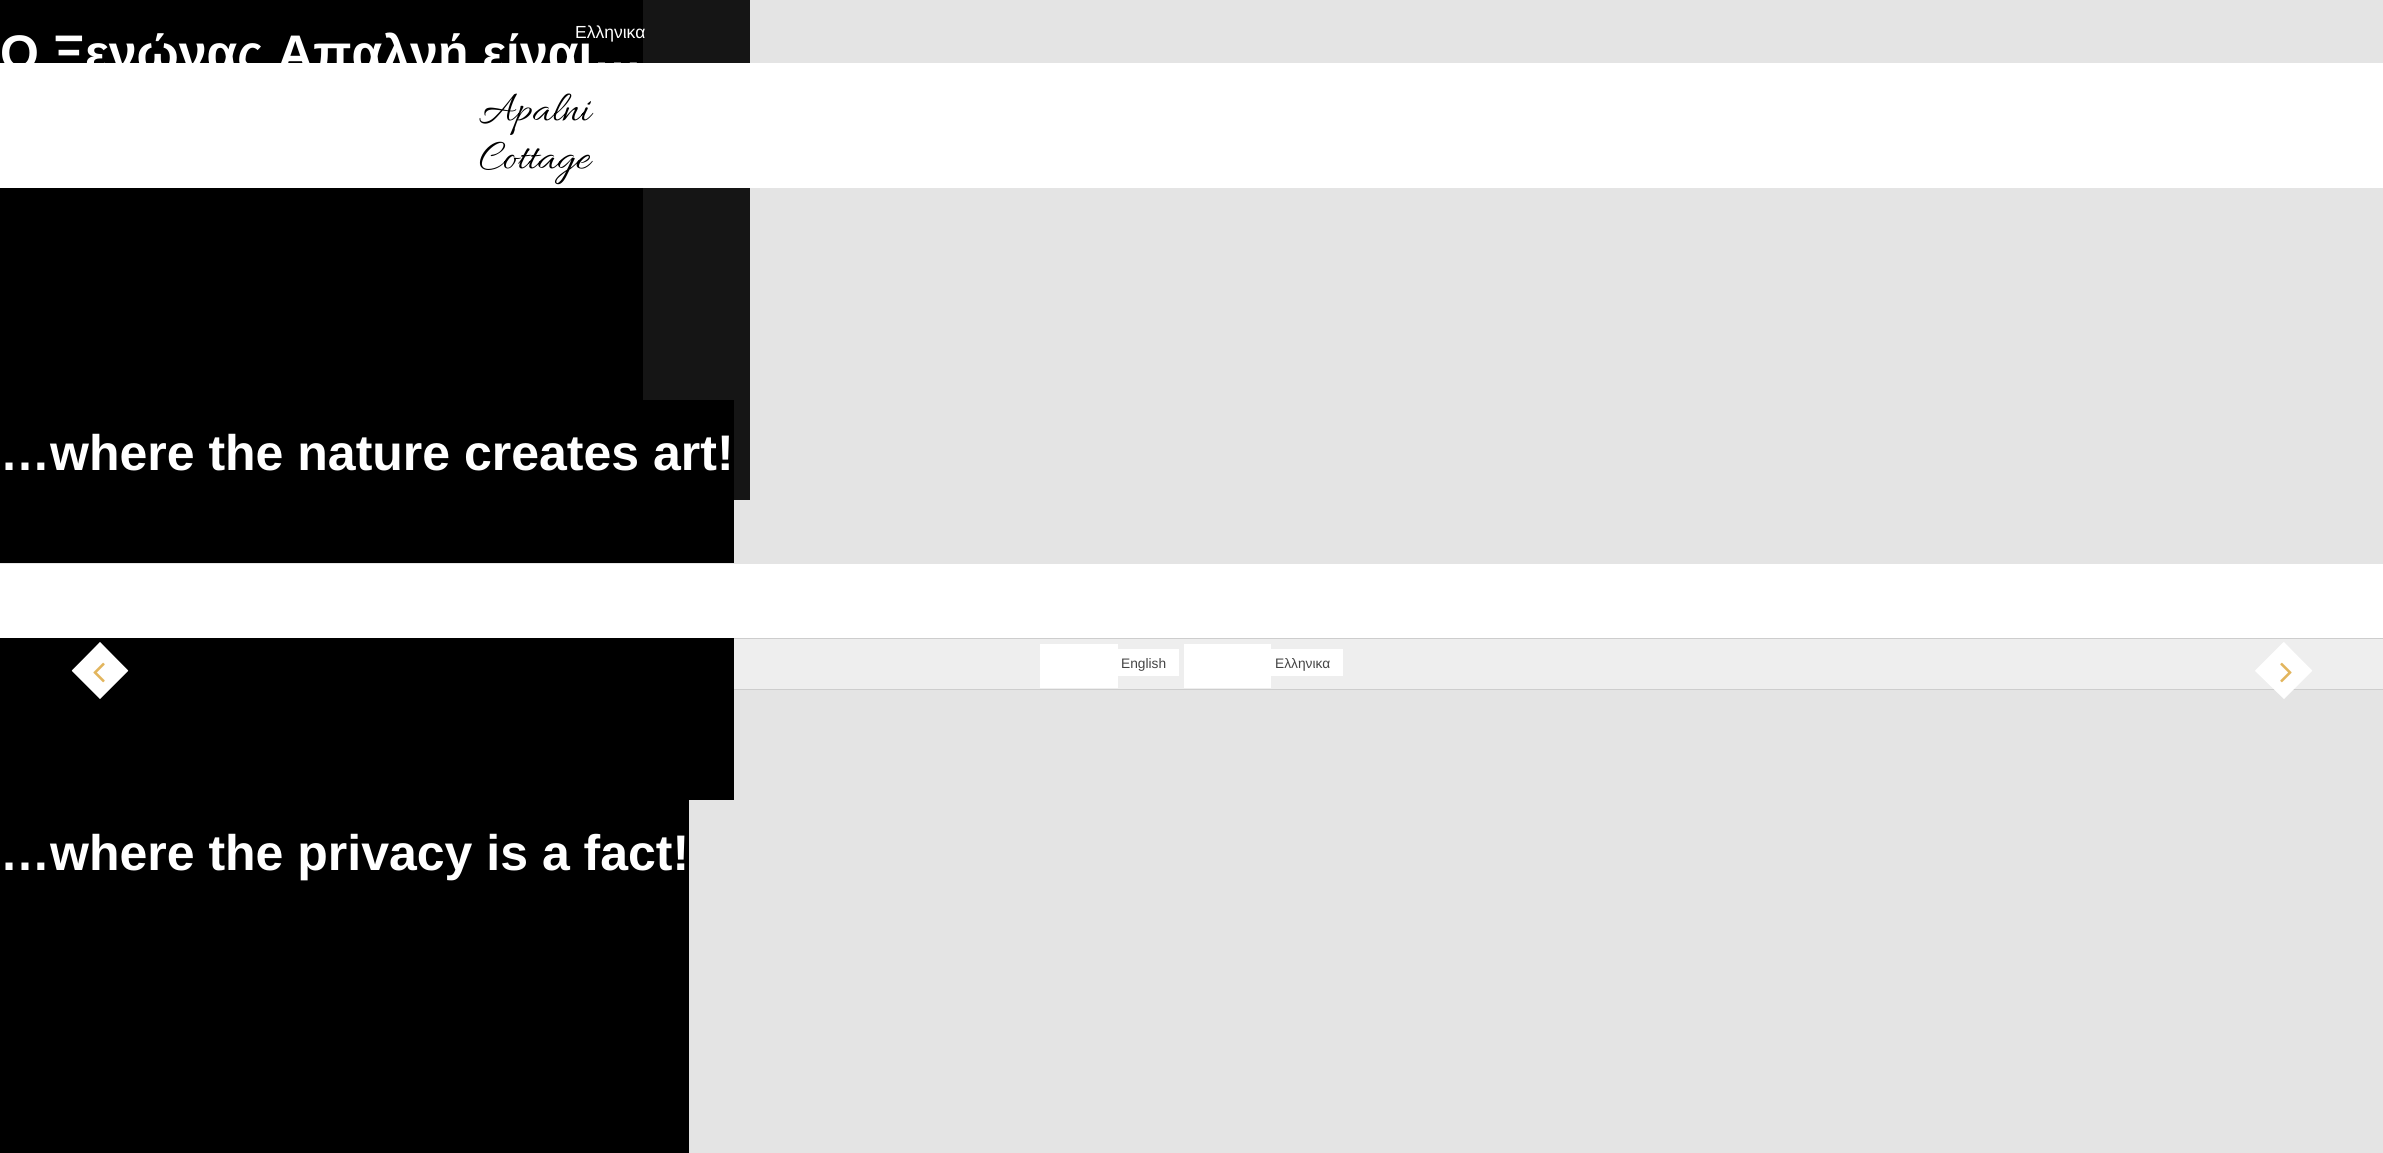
import math
import cairocffi as cairo

surface = cairo.ImageSurface(cairo.FORMAT_RGB24, 2383, 1153)
ctx = cairo.Context(surface)
options = cairo.FontOptions()
options.set_hint_metrics(cairo.HINT_METRICS_OFF)
options.set_hint_style(cairo.HINT_STYLE_NONE)
ctx.set_font_options(options)
ctx.set_miter_limit(4)


def rgb(r, g, b):
    ctx.set_source_rgb(r / 255, g / 255, b / 255)


def face(family, size, italic, bold):
    ctx.select_font_face(family, cairo.FONT_SLANT_ITALIC if italic else cairo.FONT_SLANT_NORMAL, cairo.FONT_WEIGHT_BOLD if bold else cairo.FONT_WEIGHT_NORMAL)
    ctx.set_font_size(size)


def label(x, y, s):
    ctx.move_to(x, y)
    ctx.show_text(s)


def rect(x, y, w, h):
    ctx.rectangle(x, y, w, h)
    ctx.fill()


def image(path, x, y, w, h):
    ctx.save()
    ctx.set_source_surface(cairo.ImageSurface.create_from_png(path), x, y)
    ctx.rectangle(x, y, w, h)
    ctx.fill()
    ctx.restore()


rgb(228, 228, 228)
ctx.paint()
rgb(21, 21, 21)
rect(643, 0, 107, 500)
rgb(0, 0, 0)
rect(0, 0, 643, 400)
face('Liberation Sans', 50, 0, 1)
rgb(255, 255, 255)
label(0, 70, 'Ο Ξενώνας Απαλνή είναι…')
face('Liberation Sans', 17.5, 0, 0)
label(575, 38, 'Ελληνικα')
rect(0, 63, 2383, 125)
face('Allura', 44, 0, 0)
rgb(0, 0, 0)
label(479, 120, 'Apalni')
label(479, 168, 'Cottage')
rgb(238, 238, 238)
rect(734, 639, 1649, 50)
ctx.rectangle(0.5, 638.5, 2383, 51)
rgb(205, 205, 205)
ctx.set_line_width(1)
ctx.stroke()
rgb(0, 0, 0)
rect(0, 400, 734, 400)
face('Liberation Sans', 50, 0, 1)
rgb(255, 255, 255)
label(0, 470, '…where the nature creates art!')
rgb(0, 0, 0)
rect(0, 800, 689, 353)
rgb(255, 255, 255)
label(0, 870, '…where the privacy is a fact!')
ctx.new_path()
ctx.move_to(72, 671)
ctx.line_to(100, 642)
ctx.line_to(128, 671)
ctx.line_to(100, 699)
ctx.close_path()
ctx.fill()
ctx.new_path()
ctx.move_to(73.5, 670.5)
ctx.line_to(100, 644)
ctx.line_to(126.5, 670.5)
ctx.line_to(100, 697)
ctx.close_path()
ctx.set_line_width(2.5)
ctx.stroke()
image('image0.png', 93, 662, 12, 21)
ctx.new_path()
ctx.move_to(2255, 671)
ctx.line_to(2284, 642)
ctx.line_to(2312, 671)
ctx.line_to(2284, 699)
ctx.close_path()
ctx.fill()
ctx.new_path()
ctx.move_to(2257, 670.5)
ctx.line_to(2283.5, 644)
ctx.line_to(2310.5, 670.5)
ctx.line_to(2284, 697)
ctx.close_path()
ctx.stroke()
image('image1.png', 2280, 662, 12, 21)
rect(0, 564, 2383, 74)
rgb(230, 230, 230)
rect(0, 563, 734, 1)
rgb(255, 255, 255)
rect(1118, 649, 61, 27)
face('Liberation Sans', 13.75, 0, 0)
rgb(68, 68, 68)
label(1121, 668, 'English')
rgb(255, 255, 255)
rect(1040, 644, 78, 44)
rect(1271, 649, 72, 27)
rgb(68, 68, 68)
label(1275, 668, 'Ελληνικα')
rgb(255, 255, 255)
rect(1184, 644, 87, 44)
surface.write_to_png('render.png')
